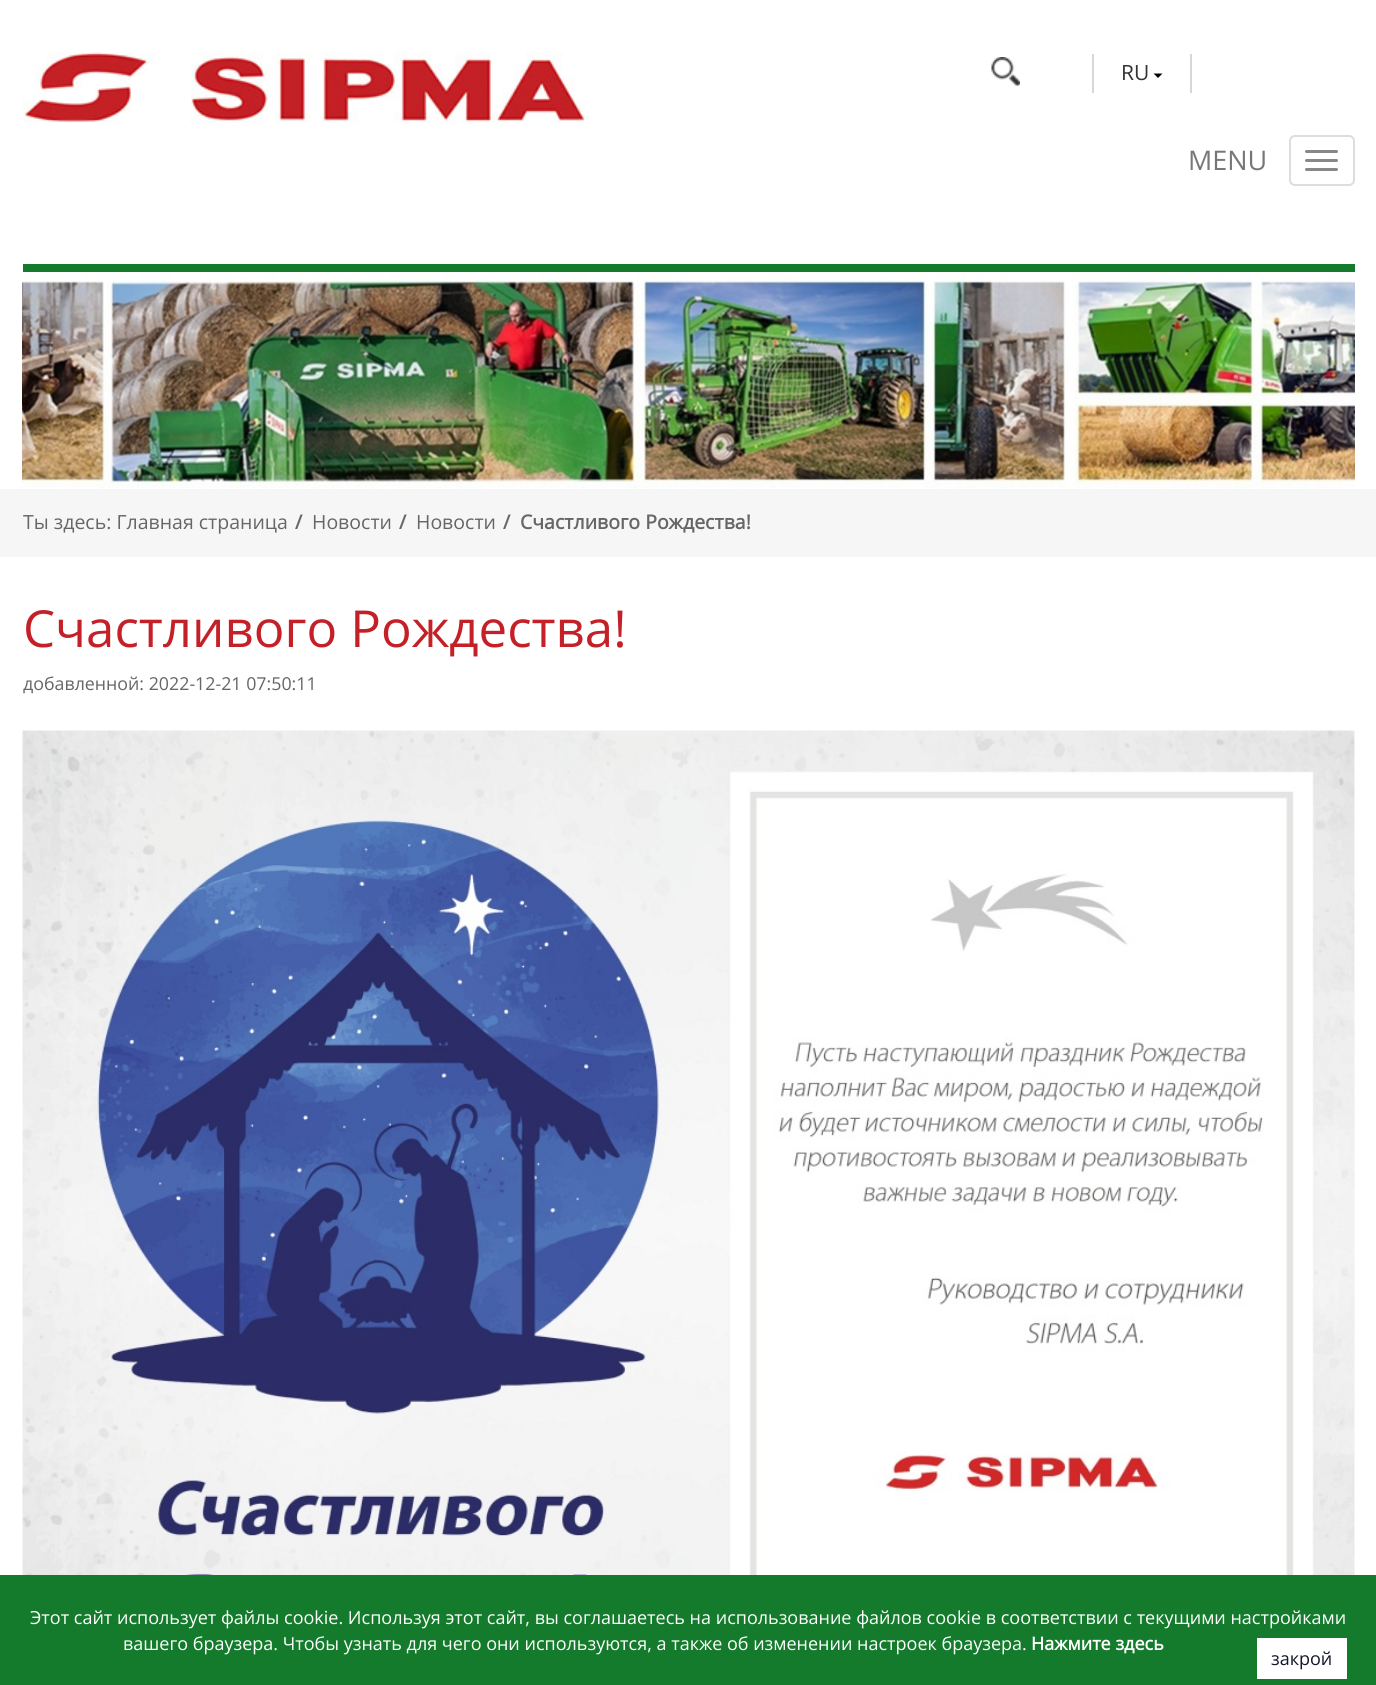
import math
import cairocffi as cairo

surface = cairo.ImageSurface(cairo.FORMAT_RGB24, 1376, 1685)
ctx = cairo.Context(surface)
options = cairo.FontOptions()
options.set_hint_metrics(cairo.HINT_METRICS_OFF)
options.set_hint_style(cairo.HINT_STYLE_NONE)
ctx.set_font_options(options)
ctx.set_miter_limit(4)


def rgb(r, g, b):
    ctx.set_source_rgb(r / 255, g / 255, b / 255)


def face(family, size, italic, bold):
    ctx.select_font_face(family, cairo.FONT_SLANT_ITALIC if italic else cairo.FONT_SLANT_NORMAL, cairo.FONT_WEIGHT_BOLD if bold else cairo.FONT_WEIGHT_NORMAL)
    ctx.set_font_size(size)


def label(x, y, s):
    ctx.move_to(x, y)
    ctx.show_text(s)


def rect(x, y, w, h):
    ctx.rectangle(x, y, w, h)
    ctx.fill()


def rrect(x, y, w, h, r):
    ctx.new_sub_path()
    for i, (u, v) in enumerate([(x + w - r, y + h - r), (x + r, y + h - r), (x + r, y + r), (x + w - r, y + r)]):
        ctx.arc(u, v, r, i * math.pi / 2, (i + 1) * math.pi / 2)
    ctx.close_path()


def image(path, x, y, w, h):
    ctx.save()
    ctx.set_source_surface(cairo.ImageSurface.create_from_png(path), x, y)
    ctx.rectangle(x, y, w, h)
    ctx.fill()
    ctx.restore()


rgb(255, 255, 255)
ctx.paint()
image('image0.png', 22, 52, 563, 71)
image('image1.png', 991, 57, 29, 29)
rgb(215, 214, 219)
rect(1190, 54, 2, 39)
rect(1092, 54, 2, 39)
face('Open Sans', 21, 0, 0)
rgb(51, 51, 51)
label(1121, 80, 'RU')
rgb(0, 0, 0)
ctx.new_path()
ctx.move_to(1153.5, 73.5)
ctx.line_to(1162.5, 73.5)
ctx.line_to(1158, 78)
ctx.close_path()
ctx.fill()
face('Open Sans', 27, 0, 0)
rgb(119, 119, 119)
label(1188, 170, 'MENU')
rrect(1290, 136, 64, 49, 5)
rgb(221, 221, 221)
ctx.stroke()
rgb(136, 136, 136)
rrect(1305, 150, 33, 3, 1.5)
ctx.fill()
rrect(1305, 159, 33, 3, 1.5)
ctx.fill()
rrect(1305, 168, 33, 3, 1.5)
ctx.fill()
rgb(21, 122, 44)
rect(23, 264, 1332, 8)
image('image2.png', 22, 272, 1333, 217)
rgb(246, 246, 246)
rect(0, 489, 1376, 68)
face('Open Sans', 19.5, 0, 0)
rgb(102, 102, 102)
label(23, 529, 'Ты здесь: Главная страница')
face('Open Sans', 19.5, 0, 1)
label(295, 529, '/')
face('Open Sans', 19.5, 0, 0)
label(312, 529, 'Новости')
face('Open Sans', 19.5, 0, 1)
label(399, 529, '/')
face('Open Sans', 19.5, 0, 0)
label(416, 529, 'Новости')
face('Open Sans', 19.5, 0, 1)
label(503, 529, '/')
label(520, 529, 'Счастливого Рождества!')
face('Open Sans', 51, 0, 0)
rgb(196, 32, 39)
label(23, 647, 'Счастливого Рождества!')
face('Open Sans', 17.8, 0, 0)
rgb(102, 102, 102)
label(23, 690, 'добавленной: 2022-12-21 07:50:11')
image('image3.png', 22, 730, 1333, 845)
rgb(20, 123, 44)
rect(0, 1575, 1376, 110)
face('Open Sans', 18, 0, 0)
rgb(255, 255, 255)
label(30, 1624, 'Этот сайт использует файлы cookie. Используя этот сайт, вы соглашаетесь на использование файлов cookie в соответствии с текущими настройками')
label(123, 1650, 'вашего браузера. Чтобы узнать для чего они используются, а также об изменении настроек браузера.')
face('Open Sans', 18, 0, 1)
label(1031, 1650, 'Нажмите здесь')
rect(1257, 1638, 90, 41)
face('Open Sans', 18, 0, 0)
rgb(19, 22, 41)
label(1271, 1665, 'закрой')
surface.write_to_png('render.png')
